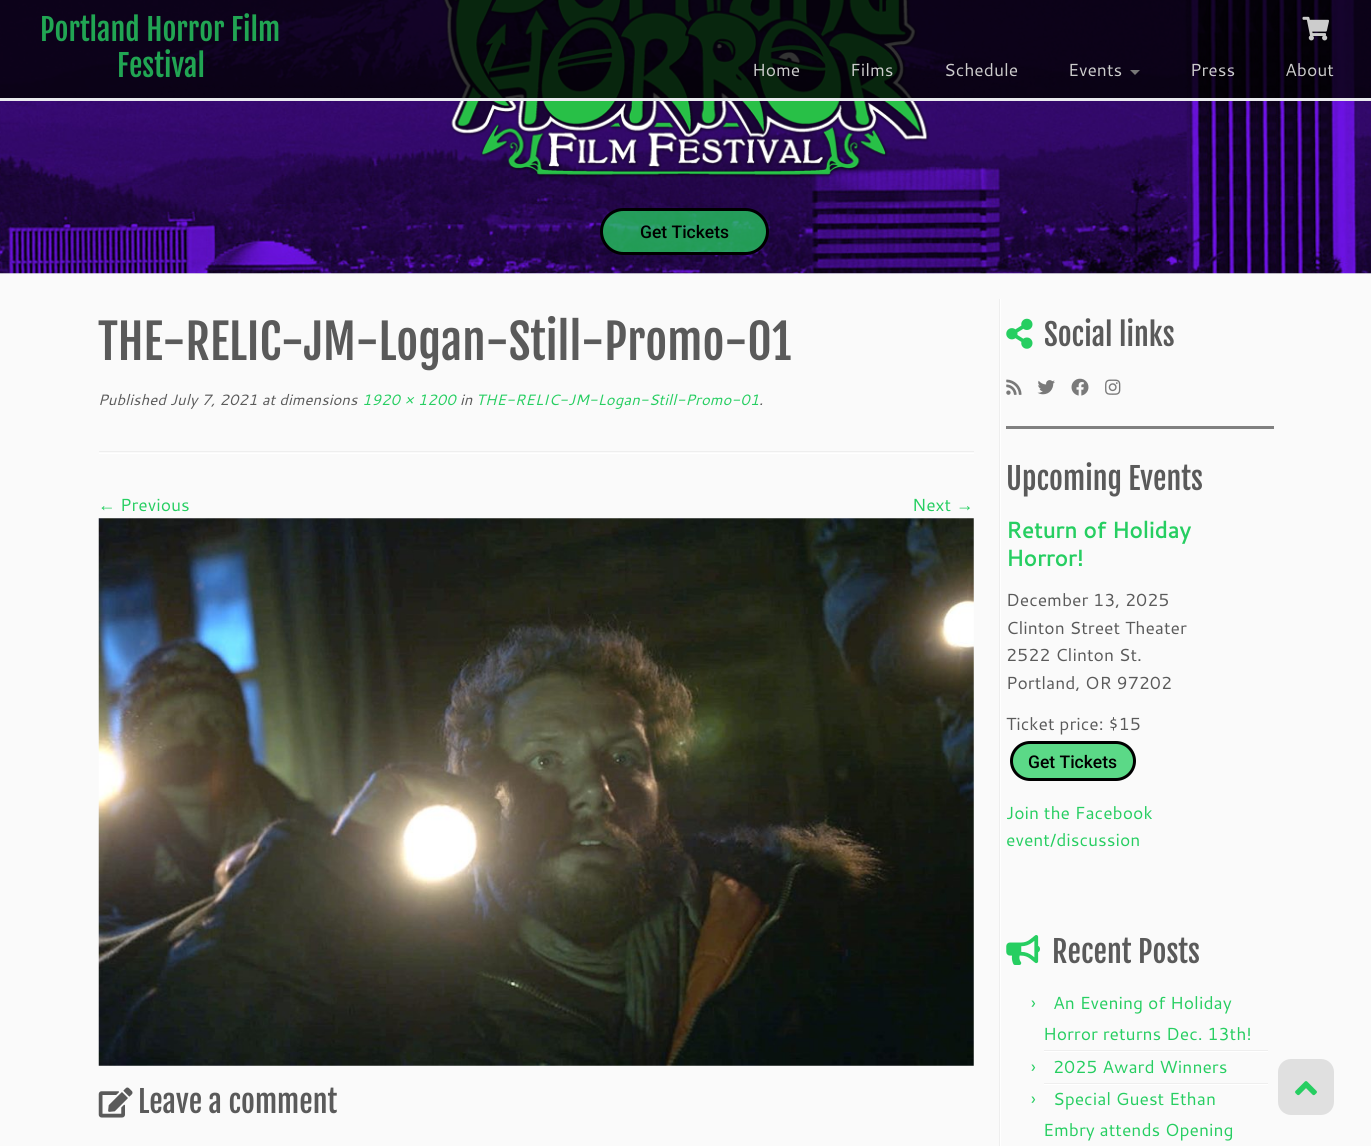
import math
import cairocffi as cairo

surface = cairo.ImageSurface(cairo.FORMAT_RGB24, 1371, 1146)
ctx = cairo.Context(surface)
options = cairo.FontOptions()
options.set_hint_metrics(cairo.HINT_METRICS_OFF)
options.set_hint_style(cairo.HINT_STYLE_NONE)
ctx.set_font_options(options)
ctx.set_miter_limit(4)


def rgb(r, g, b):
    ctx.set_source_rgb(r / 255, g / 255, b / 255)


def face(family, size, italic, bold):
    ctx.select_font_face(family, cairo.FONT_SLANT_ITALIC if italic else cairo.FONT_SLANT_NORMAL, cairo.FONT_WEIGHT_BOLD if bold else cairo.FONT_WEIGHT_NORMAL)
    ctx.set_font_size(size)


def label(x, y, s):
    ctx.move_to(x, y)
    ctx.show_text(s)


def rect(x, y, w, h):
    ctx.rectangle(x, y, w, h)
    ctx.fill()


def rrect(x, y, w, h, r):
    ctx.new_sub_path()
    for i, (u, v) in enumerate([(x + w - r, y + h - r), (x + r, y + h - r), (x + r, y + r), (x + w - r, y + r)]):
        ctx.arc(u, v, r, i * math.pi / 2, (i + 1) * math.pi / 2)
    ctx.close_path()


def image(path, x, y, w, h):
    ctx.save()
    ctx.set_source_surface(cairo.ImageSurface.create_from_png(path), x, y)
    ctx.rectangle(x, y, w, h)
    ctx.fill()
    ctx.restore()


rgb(250, 250, 250)
ctx.paint()
rgb(238, 240, 241)
rect(0, 273, 1371, 1)
image('image1.png', 0, 0, 1371, 274)
image('image2.png', 442, 0, 488, 178)
ctx.set_source_rgba(0, 0, 0, 0.8)
rect(0, 0, 1371, 98)
rgb(233, 234, 238)
rect(0, 98, 1371, 3)
face('Fjalla One', 30, 0, 0)
rgb(33, 165, 83)
label(40, 41, 'Portland Horror Film')
label(117, 77, 'Festival')
image('image0.png', 1302, 16, 27, 25)
face('Cantarell', 17.5, 0, 0)
rgb(204, 204, 204)
label(752, 76, 'Home')
label(850, 76, 'Films')
label(944, 76, 'Schedule')
label(1068, 76, 'Events')
rgb(119, 119, 119)
ctx.new_path()
ctx.move_to(1130, 70)
ctx.line_to(1140, 70)
ctx.line_to(1135, 75)
ctx.close_path()
ctx.fill()
rgb(204, 204, 204)
label(1190, 76, 'Press')
label(1285, 76, 'About')
ctx.set_source_rgba(0.149, 0.808, 0.38, 0.75)
rrect(601.5, 209.5, 166, 44, 22)
ctx.fill_preserve()
rgb(0, 0, 0)
ctx.set_line_width(3)
ctx.stroke()
face('Roboto Medium', 17.5, 0, 0)
label(640, 238, 'Get Tickets')
face('Fjalla One', 47.5, 0, 0)
rgb(90, 90, 90)
label(98, 360, 'THE-RELIC-JM-Logan-Still-Promo-01')
face('Cantarell', 15, 1, 0)
label(98, 405, 'Published July 7, 2021 at dimensions')
rgb(38, 206, 97)
label(362, 405, '1920 × 1200')
rgb(90, 90, 90)
label(460, 405, 'in')
rgb(38, 206, 97)
label(476, 405, 'THE-RELIC-JM-Logan-Still-Promo-01')
rgb(90, 90, 90)
label(759, 405, '.')
rgb(238, 238, 238)
rect(99, 451, 875, 1)
rgb(255, 255, 255)
rect(99, 453, 875, 1)
face('Liberation Serif', 17.5, 0, 0)
rgb(38, 206, 97)
label(98, 511, '←')
face('Cantarell', 17.5, 0, 0)
label(120, 511, 'Previous')
label(912, 511, 'Next')
face('Liberation Serif', 17.5, 0, 0)
label(956, 511, '→')
image('image3.png', 98, 518, 876, 548)
image('image4.png', 98, 1087, 35, 31)
face('Fjalla One', 30, 0, 0)
rgb(90, 90, 90)
label(138, 1113, 'Leave a comment')
rgb(238, 238, 238)
rect(999, 299, 1, 847)
rgb(255, 255, 255)
rect(1000, 299, 1, 847)
image('image5.png', 1006, 318, 27, 31)
rgb(90, 90, 90)
label(1044, 346, 'Social links')
image('image6.png', 1006, 379, 16, 16)
image('image7.png', 1037, 380, 18, 15)
image('image8.png', 1071, 378, 18, 18)
image('image9.png', 1105, 379, 16, 16)
rgb(128, 128, 128)
rect(1006, 426, 268, 3)
rgb(90, 90, 90)
label(1006, 490, 'Upcoming Events')
face('Cantarell', 22.5, 0, 1)
rgb(38, 206, 97)
label(1006, 538, 'Return of Holiday')
label(1006, 566, 'Horror!')
face('Cantarell', 17.5, 0, 0)
rgb(90, 90, 90)
label(1006, 606, 'December 13, 2025')
label(1006, 634, 'Clinton Street Theater')
label(1006, 661, '2522 Clinton St.')
label(1006, 689, 'Portland, OR 97202')
label(1006, 730, 'Ticket price: $15')
rgb(91, 217, 135)
rrect(1011.5, 742.5, 123, 37, 18.5)
ctx.fill_preserve()
rgb(0, 0, 0)
ctx.stroke()
face('Roboto Medium', 17.5, 0, 0)
label(1028, 768, 'Get Tickets')
face('Cantarell', 17.5, 0, 0)
rgb(38, 206, 97)
label(1006, 819, 'Join the Facebook')
label(1006, 846, 'event/discussion')
image('image10.png', 1006, 935, 34, 30)
face('Fjalla One', 30, 0, 0)
rgb(90, 90, 90)
label(1052, 963, 'Recent Posts')
rgb(238, 238, 238)
rect(1044, 1050, 224, 1)
face('Cantarell', 17.5, 0, 0)
rgb(38, 206, 97)
label(1031, 1009, '›')
label(1053, 1009, 'An Evening of Holiday')
label(1043, 1040, 'Horror returns Dec. 13th!')
rgb(255, 255, 255)
rect(1044, 1051, 224, 1)
rgb(238, 238, 238)
rect(1044, 1083, 224, 1)
rgb(38, 206, 97)
label(1031, 1073, '›')
label(1053, 1073, '2025 Award Winners')
rgb(255, 255, 255)
rect(1044, 1084, 224, 1)
rgb(38, 206, 97)
label(1031, 1105, '›')
label(1053, 1105, 'Special Guest Ethan')
label(1043, 1136, 'Embry attends Opening')
rgb(224, 224, 224)
rrect(1278, 1059, 56, 56, 13)
ctx.fill()
image('image11.png', 1295, 1081, 22, 15)
surface.write_to_png('render.png')
